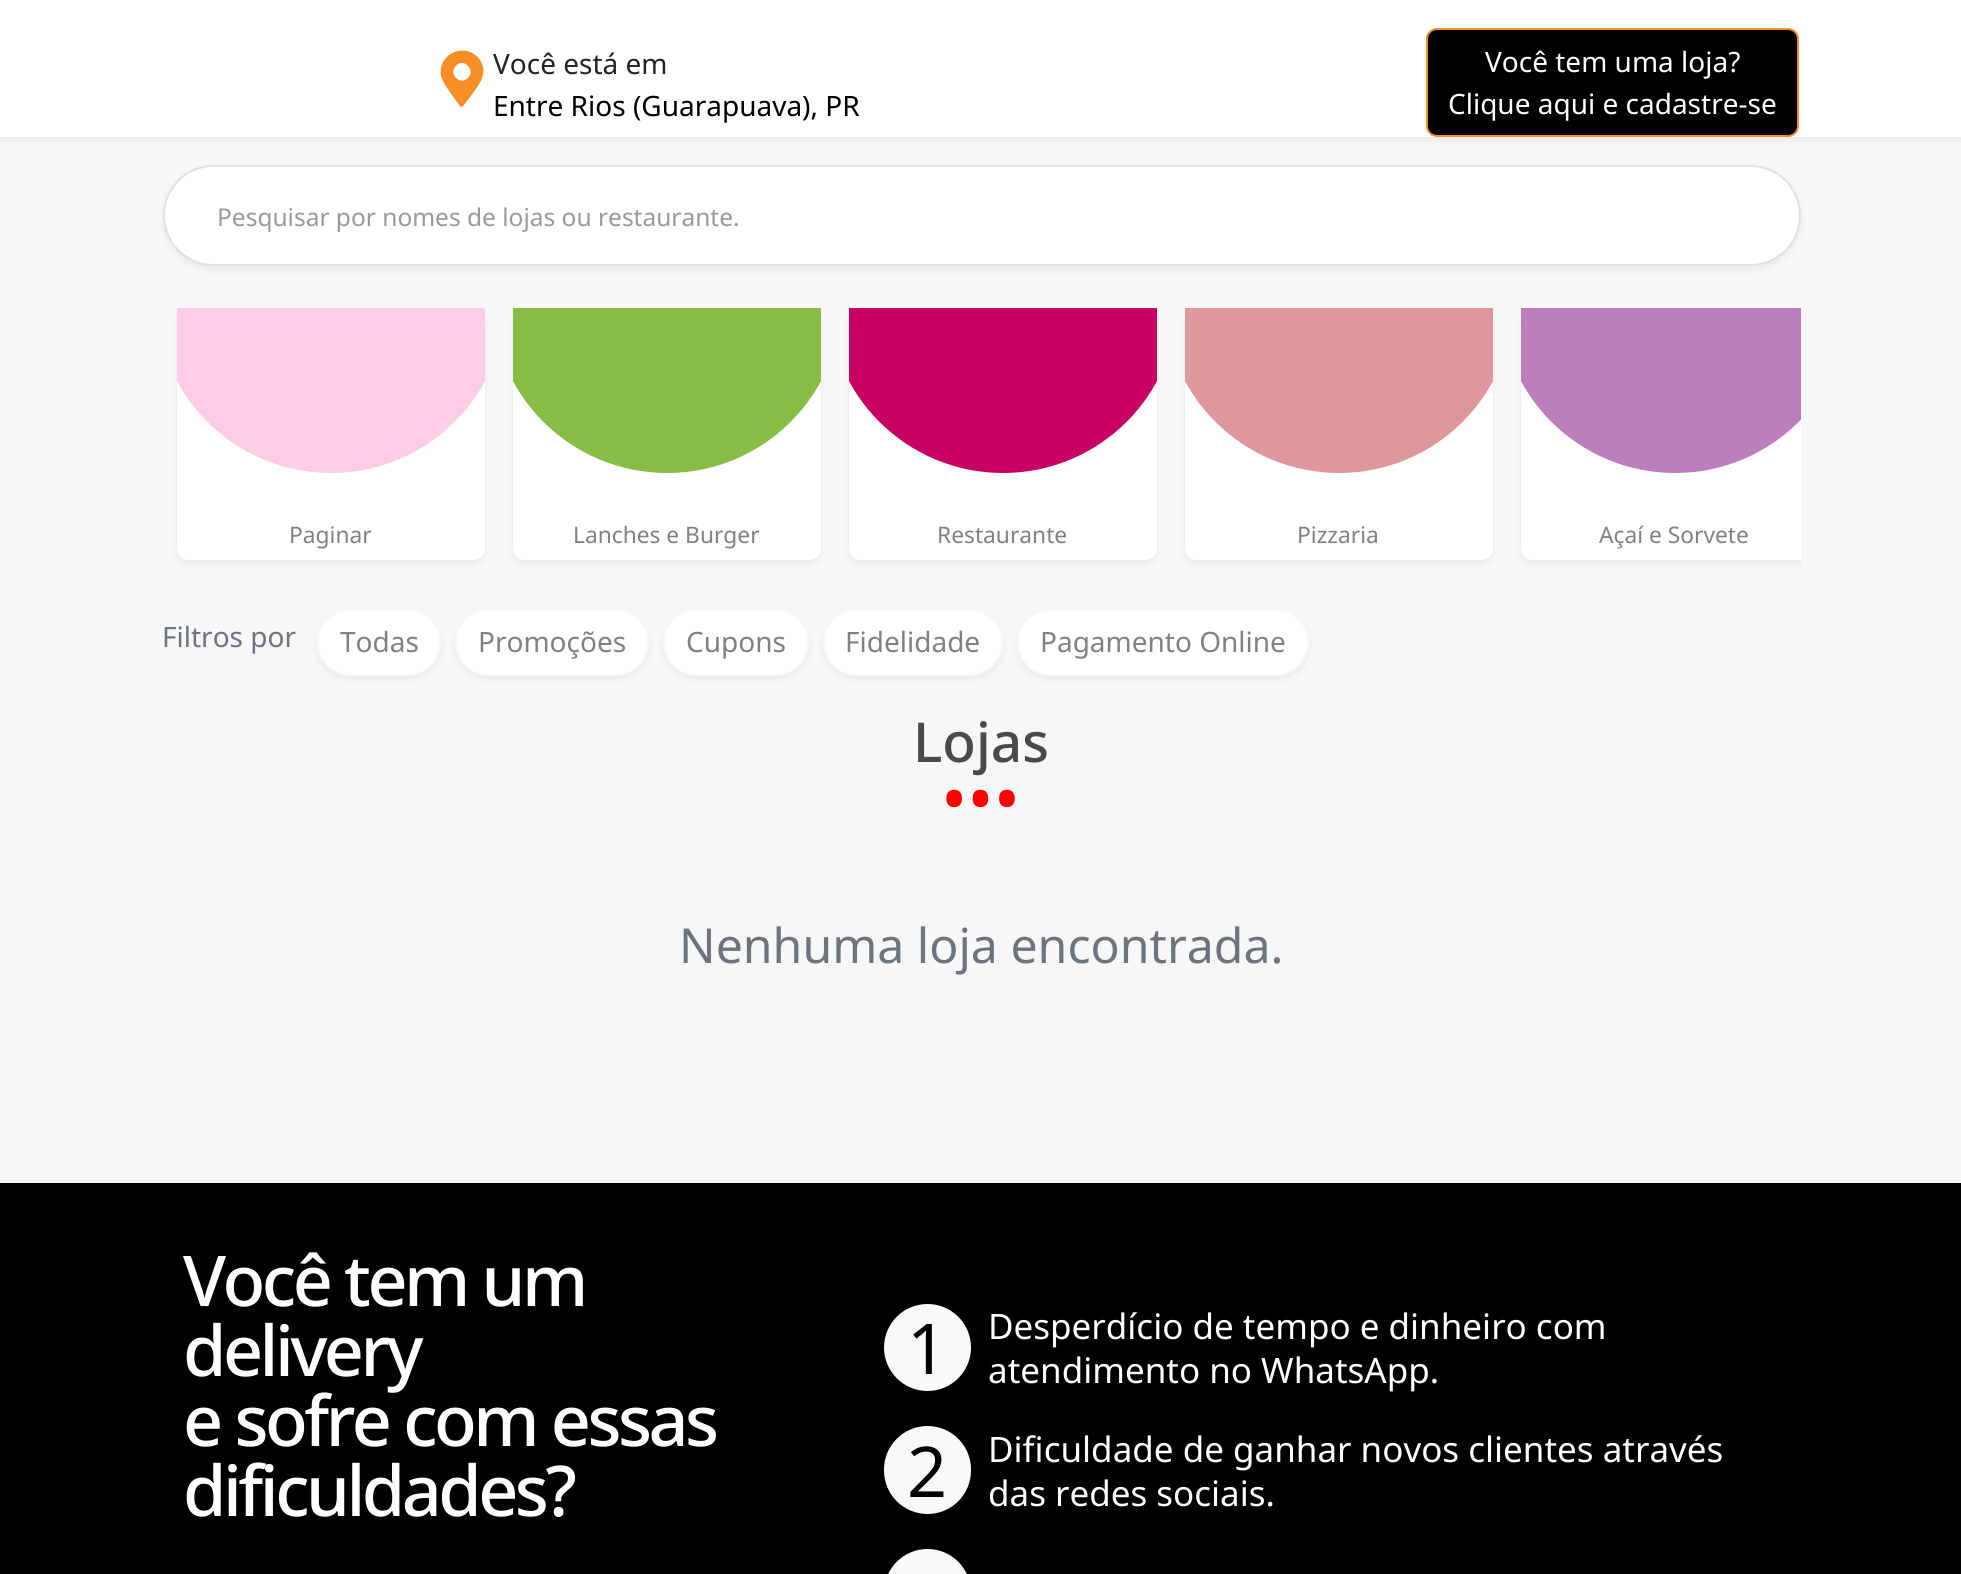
import math
import cairocffi as cairo

surface = cairo.ImageSurface(cairo.FORMAT_RGB24, 1961, 1574)
ctx = cairo.Context(surface)
options = cairo.FontOptions()
options.set_hint_metrics(cairo.HINT_METRICS_OFF)
options.set_hint_style(cairo.HINT_STYLE_NONE)
ctx.set_font_options(options)
ctx.set_miter_limit(4)


def rgb(r, g, b):
    ctx.set_source_rgb(r / 255, g / 255, b / 255)


def face(family, size, italic, bold):
    ctx.select_font_face(family, cairo.FONT_SLANT_ITALIC if italic else cairo.FONT_SLANT_NORMAL, cairo.FONT_WEIGHT_BOLD if bold else cairo.FONT_WEIGHT_NORMAL)
    ctx.set_font_size(size)


def label(x, y, s):
    ctx.move_to(x, y)
    ctx.show_text(s)


def tracked(x, y, s, letter, word):
    ctx.move_to(x, y)
    for ch in s:
        ctx.show_text(ch)
        ctx.rel_move_to(letter + word * (ch == ' '), 0)


def rect(x, y, w, h):
    ctx.rectangle(x, y, w, h)
    ctx.fill()


def rrect(x, y, w, h, r):
    ctx.new_sub_path()
    for i, (u, v) in enumerate([(x + w - r, y + h - r), (x + r, y + h - r), (x + r, y + r), (x + w - r, y + r)]):
        ctx.arc(u, v, r, i * math.pi / 2, (i + 1) * math.pi / 2)
    ctx.close_path()


def soft_shadow(x, y, w, h, r, blur, alpha):
    ctx.push_group_with_content(cairo.CONTENT_ALPHA)
    ctx.set_operator(cairo.OPERATOR_SOURCE)
    for i in range(15, -16, -2):
        e = blur * i / 6
        if min(w, h) + 2 * e > 0:
            ctx.set_source_rgba(0, 0, 0, alpha * math.erfc((i - 1) / 8.5) / 2)
            rrect(x - e, y - e, w + 2 * e, h + 2 * e, max(0, min(r + e + blur * .6, min(w, h) / 2 + e)))
            ctx.fill()
    ctx.mask(ctx.pop_group())


rgb(247, 247, 247)
ctx.paint()
rgb(33, 37, 41)
soft_shadow(0, 4, 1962, 136, 0, 3.5, 0.07)
rgb(255, 255, 255)
rect(0, 0, 1961, 137)
rgb(246, 141, 38)
ctx.new_path()
ctx.move_to(460, 106)
ctx.curve_to(455, 99, 443, 84, 441, 76)
ctx.curve_to(437, 53, 467, 41, 480, 60)
ctx.curve_to(489, 74, 478, 86, 470, 97)
ctx.line_to(463, 106)
ctx.curve_to(462, 107, 461, 107, 460, 106)
ctx.close_path()
ctx.move_to(456, 78)
ctx.curve_to(464, 86, 476, 74, 468, 66)
ctx.curve_to(460, 57, 448, 70, 456, 78)
ctx.close_path()
ctx.fill()
face('Noto Sans', 28, 0, 0)
rgb(33, 37, 41)
label(493, 74, 'Você está em')
rgb(0, 0, 0)
label(493, 116, 'Entre Rios (Guarapuava), PR')
rrect(1427, 29, 371, 107, 10)
ctx.fill_preserve()
rgb(246, 141, 38)
ctx.stroke()
rgb(255, 255, 255)
label(1485, 72, 'Você tem uma loja?')
label(1448, 114, 'Clique aqui e cadastre-se')
rgb(33, 37, 41)
soft_shadow(163, 168, 1638, 102, 51, 3.5, 0.07)
rgb(255, 255, 255)
rrect(164, 166, 1636, 99, 49.5)
ctx.fill_preserve()
rgb(222, 226, 230)
ctx.stroke()
face('Noto Sans', 24.5, 0, 0)
rgb(153, 153, 153)
label(217, 226, 'Pesquisar por nomes de lojas ou restaurante.')
rgb(33, 37, 41)
soft_shadow(177, 312, 308, 252, 11, 3.5, 0.07)
rgb(255, 255, 255)
rrect(177, 308, 308, 252, 11)
ctx.fill()
ctx.save()
ctx.rectangle(177, 308, 308, 252)
ctx.clip()
rgb(253, 204, 229)
ctx.arc(331, 298, 175, 0, 2 * math.pi)
ctx.fill()
ctx.restore()
face('Noto Sans', 22.75, 0, 0)
rgb(129, 129, 129)
label(289, 543, 'Paginar')
rgb(33, 37, 41)
soft_shadow(513, 312, 308, 252, 11, 3.5, 0.07)
rgb(255, 255, 255)
rrect(513, 308, 308, 252, 11)
ctx.fill()
ctx.save()
ctx.rectangle(513, 308, 308, 252)
ctx.clip()
rgb(135, 188, 69)
ctx.arc(667, 298, 175, 0, 2 * math.pi)
ctx.fill()
ctx.restore()
rgb(129, 129, 129)
label(573, 543, 'Lanches e Burger')
rgb(33, 37, 41)
soft_shadow(849, 312, 308, 252, 11, 3.5, 0.07)
rgb(255, 255, 255)
rrect(849, 308, 308, 252, 11)
ctx.fill()
ctx.save()
ctx.rectangle(849, 308, 308, 252)
ctx.clip()
rgb(200, 0, 100)
ctx.arc(1003, 298, 175, 0, 2 * math.pi)
ctx.fill()
ctx.restore()
rgb(129, 129, 129)
label(937, 543, 'Restaurante')
rgb(33, 37, 41)
soft_shadow(1185, 312, 308, 252, 11, 3.5, 0.07)
rgb(255, 255, 255)
rrect(1185, 308, 308, 252, 11)
ctx.fill()
ctx.save()
ctx.rectangle(1185, 308, 308, 252)
ctx.clip()
rgb(223, 151, 158)
ctx.arc(1339, 298, 175, 0, 2 * math.pi)
ctx.fill()
ctx.restore()
rgb(129, 129, 129)
label(1297, 543, 'Pizzaria')
ctx.save()
rrect(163, 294, 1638, 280, 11)
ctx.clip()
rgb(33, 37, 41)
soft_shadow(1521, 312, 308, 252, 11, 3.5, 0.07)
ctx.restore()
rgb(255, 255, 255)
ctx.new_path()
ctx.move_to(1532, 308)
ctx.line_to(1801, 308)
ctx.line_to(1801, 560)
ctx.line_to(1532, 560)
ctx.curve_to(1526, 560, 1521, 555, 1521, 549)
ctx.line_to(1521, 319)
ctx.curve_to(1521, 313, 1526, 308, 1532, 308)
ctx.close_path()
ctx.fill()
ctx.save()
ctx.rectangle(1521, 308, 308, 252)
ctx.clip()
rrect(163, 294, 1638, 280, 11)
ctx.clip()
rgb(189, 126, 190)
ctx.arc(1675, 298, 175, 0, 2 * math.pi)
ctx.fill()
ctx.restore()
rgb(129, 129, 129)
label(1599, 543, 'Açaí e Sorvete')
face('Noto Sans', 28, 0, 0)
rgb(108, 117, 125)
label(162, 647, 'Filtros por')
rgb(33, 37, 41)
soft_shadow(317, 613, 124, 66, 33, 3.5, 0.07)
rgb(255, 255, 255)
rrect(318, 610, 122, 65, 32.5)
ctx.fill_preserve()
rgb(248, 249, 250)
ctx.stroke()
rgb(129, 129, 129)
label(340, 652, 'Todas')
rgb(33, 37, 41)
soft_shadow(455, 613, 194, 66, 33, 3.5, 0.07)
rgb(255, 255, 255)
rrect(456, 610, 192, 65, 32.5)
ctx.fill_preserve()
rgb(248, 249, 250)
ctx.stroke()
rgb(129, 129, 129)
label(478, 652, 'Promoções')
rgb(33, 37, 41)
soft_shadow(663, 613, 146, 66, 33, 3.5, 0.07)
rgb(255, 255, 255)
rrect(664, 610, 144, 65, 32.5)
ctx.fill_preserve()
rgb(248, 249, 250)
ctx.stroke()
rgb(129, 129, 129)
label(686, 652, 'Cupons')
rgb(33, 37, 41)
soft_shadow(823, 613, 180, 66, 33, 3.5, 0.07)
rgb(255, 255, 255)
rrect(824, 610, 178, 65, 32.5)
ctx.fill_preserve()
rgb(248, 249, 250)
ctx.stroke()
rgb(129, 129, 129)
label(845, 652, 'Fidelidade')
rgb(33, 37, 41)
soft_shadow(1017, 613, 292, 66, 33, 3.5, 0.07)
rgb(255, 255, 255)
rrect(1018, 610, 290, 65, 32.5)
ctx.fill_preserve()
rgb(248, 249, 250)
ctx.stroke()
rgb(129, 129, 129)
label(1040, 652, 'Pagamento Online')
face('Noto Sans Medium', 55, 0, 0)
rgb(74, 74, 74)
label(913, 762, 'Lojas')
face('Noto Sans', 70, 0, 0)
rgb(255, 0, 0)
label(941, 824, '•••')
face('Noto Sans', 48.2, 0, 0)
rgb(108, 117, 125)
label(679, 963, 'Nenhuma loja encontrada.')
rgb(0, 0, 0)
rect(0, 1183, 1961, 391)
face('Noto Sans Medium', 70, 0, 0)
rgb(255, 255, 255)
tracked(183, 1306, 'Você tem um', -3.5, 0)
tracked(183, 1376, 'delivery', -3.5, 0)
tracked(183, 1446, 'e sofre com essas', -3.5, 0)
tracked(183, 1516, 'dificuldades?', -3.5, 0)
rgb(248, 249, 250)
ctx.new_path()
ctx.arc(927.5, 1347.5, 43.5, 0, 2 * math.pi)
ctx.fill()
face('Noto Sans', 70, 0, 0)
rgb(0, 0, 0)
label(907, 1374, '1')
face('Noto Sans', 35, 0, 0)
rgb(255, 255, 255)
label(988, 1339, 'Desperdício de tempo e dinheiro com')
label(988, 1383, 'atendimento no WhatsApp.')
rgb(248, 249, 250)
rrect(884, 1426, 87, 88, 43.5)
ctx.fill()
face('Noto Sans', 70, 0, 0)
rgb(0, 0, 0)
label(907, 1497, '2')
face('Noto Sans', 35, 0, 0)
rgb(255, 255, 255)
label(988, 1462, 'Dificuldade de ganhar novos clientes através')
label(988, 1506, 'das redes sociais.')
rgb(248, 249, 250)
rrect(884, 1549, 87, 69, 43.5)
ctx.fill()
surface.write_to_png('render.png')
